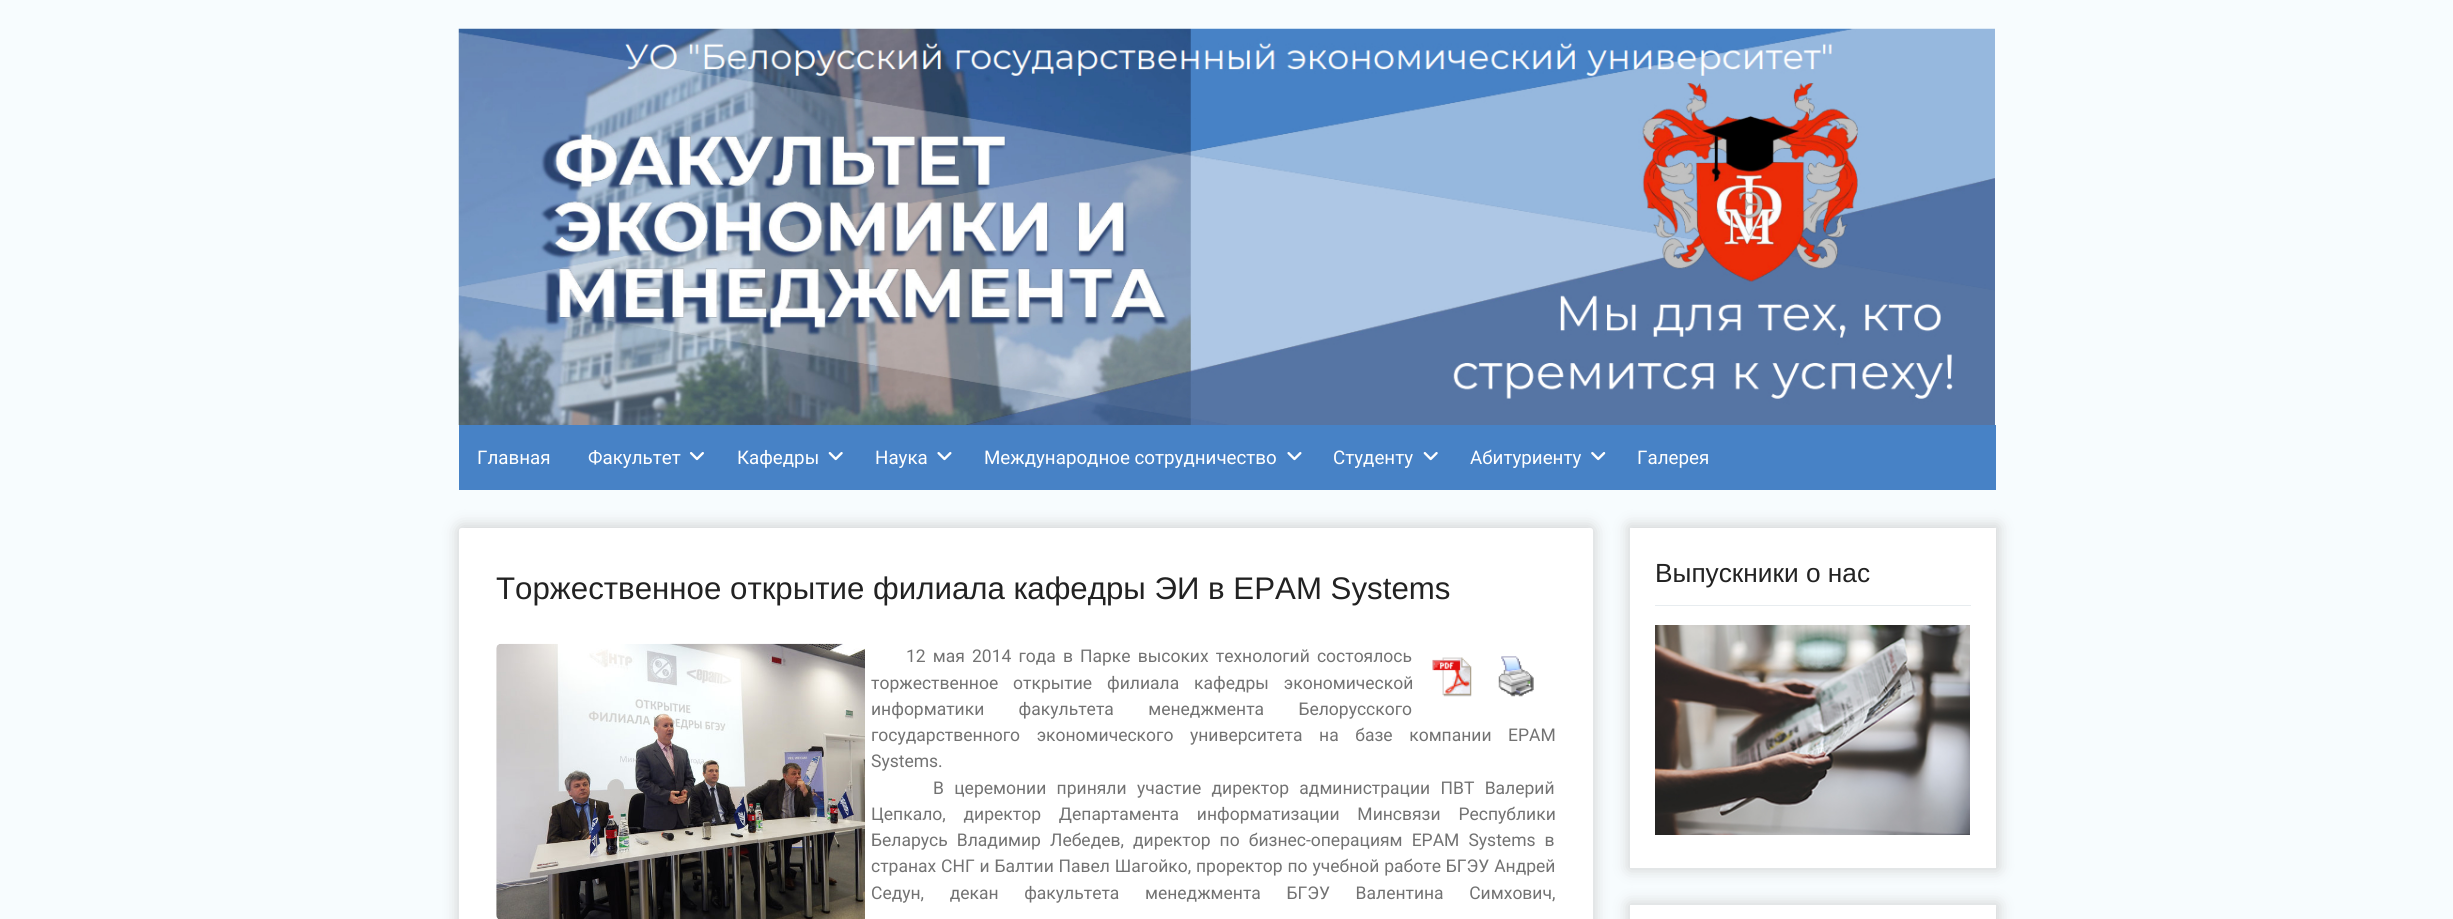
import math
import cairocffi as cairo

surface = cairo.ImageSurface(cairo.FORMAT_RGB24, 2453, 919)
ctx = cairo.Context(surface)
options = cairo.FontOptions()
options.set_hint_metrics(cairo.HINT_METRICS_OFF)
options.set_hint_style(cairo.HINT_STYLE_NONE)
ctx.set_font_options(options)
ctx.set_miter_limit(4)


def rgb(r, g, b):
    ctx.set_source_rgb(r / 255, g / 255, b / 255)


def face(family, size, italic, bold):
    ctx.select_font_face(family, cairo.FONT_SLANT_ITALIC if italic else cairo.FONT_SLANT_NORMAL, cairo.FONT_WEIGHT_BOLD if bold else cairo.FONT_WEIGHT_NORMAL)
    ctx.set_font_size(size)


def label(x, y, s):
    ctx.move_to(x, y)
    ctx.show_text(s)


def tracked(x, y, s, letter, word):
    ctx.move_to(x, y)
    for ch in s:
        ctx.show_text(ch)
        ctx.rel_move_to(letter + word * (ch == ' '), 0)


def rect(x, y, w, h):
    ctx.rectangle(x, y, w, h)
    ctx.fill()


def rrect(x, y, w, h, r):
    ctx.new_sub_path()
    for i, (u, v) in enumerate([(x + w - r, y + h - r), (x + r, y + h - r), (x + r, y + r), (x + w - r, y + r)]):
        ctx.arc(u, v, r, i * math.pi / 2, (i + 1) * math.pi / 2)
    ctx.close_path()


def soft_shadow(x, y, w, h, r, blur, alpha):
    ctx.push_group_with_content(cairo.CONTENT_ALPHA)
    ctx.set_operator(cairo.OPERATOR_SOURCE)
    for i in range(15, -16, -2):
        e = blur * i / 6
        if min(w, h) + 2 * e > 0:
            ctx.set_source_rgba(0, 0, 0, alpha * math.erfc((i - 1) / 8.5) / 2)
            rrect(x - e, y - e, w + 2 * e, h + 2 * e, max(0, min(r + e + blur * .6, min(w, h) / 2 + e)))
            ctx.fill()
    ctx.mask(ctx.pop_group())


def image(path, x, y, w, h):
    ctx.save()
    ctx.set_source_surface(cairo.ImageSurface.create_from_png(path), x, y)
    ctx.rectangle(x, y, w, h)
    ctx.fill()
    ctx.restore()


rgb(247, 252, 254)
ctx.paint()
image('image0.png', 458, 28, 1537, 397)
rgb(71, 130, 198)
rect(459, 425, 1537, 65)
face('Roboto', 18.75, 0, 0)
rgb(255, 255, 255)
label(477, 464, 'Главная')
label(588, 464, 'Факультет')
image('image1.png', 689, 452, 15, 9)
label(737, 464, 'Кафедры')
image('image2.png', 828, 452, 15, 9)
label(875, 464, 'Наука')
image('image3.png', 937, 452, 15, 9)
label(984, 464, 'Международное сотрудничество')
image('image3.png', 1287, 452, 15, 9)
label(1333, 464, 'Студенту')
image('image2.png', 1423, 452, 15, 9)
label(1470, 464, 'Абитуриенту')
image('image4.png', 1591, 452, 15, 9)
label(1637, 464, 'Галерея')
rgb(207, 207, 207)
soft_shadow(458, 526, 1136, 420, 4, 7.5, 1)
rgb(255, 255, 255)
rrect(459, 528, 1134, 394, 2.5)
ctx.fill()
face('Liberation Sans', 31.25, 0, 0)
rgb(34, 34, 34)
label(496, 599, 'Торжественное открытие филиала кафедры ЭИ в EPAM Systems')
image('image5.png', 496, 643, 369, 276)
face('Roboto', 17.5, 0, 0)
rgb(114, 114, 114)
tracked(906, 662, '12 мая 2014 года в Парке высоких технологий состоялось', 0, 2.75)
tracked(871, 689, 'торжественное открытие филиала кафедры экономической', 0, 10.5)
tracked(871, 715, 'информатики факультета менеджмента Белорусского', 0, 30)
tracked(871, 741, 'государственного экономического университета на базе компании EPAM', 0, 12.25)
label(871, 767, 'Systems.')
tracked(933, 794, 'В церемонии приняли участие директор администрации ПВТ Валерий', 0, 6)
tracked(871, 820, 'Цепкало, директор Департамента информатизации Минсвязи Республики', 0, 13.5)
tracked(871, 846, 'Беларусь Владимир Лебедев, директор по бизнес-операциям EPAM Systems в', 0, 4.75)
tracked(871, 872, 'странах СНГ и Балтии Павел Шагойко, проректор по учебной работе БГЭУ Андрей', 0, 0.5)
tracked(871, 899, 'Седун, декан факультета менеджмента БГЭУ Валентина Симхович,', 0, 21.25)
image('image6.png', 1432, 657, 40, 40)
image('image7.png', 1498, 656, 36, 41)
rgb(207, 207, 207)
soft_shadow(1629, 526, 369, 343, 0, 7.5, 1)
rgb(255, 255, 255)
rect(1630, 528, 366, 340)
rgb(231, 236, 239)
rect(1655, 605, 316, 1)
face('Liberation Sans', 26.25, 0, 0)
rgb(34, 34, 34)
label(1655, 582, 'Выпускники о нас')
image('image8.png', 1655, 625, 315, 210)
rgb(207, 207, 207)
soft_shadow(1629, 904, 369, 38, 0, 7.5, 1)
rgb(255, 255, 255)
rect(1630, 905, 366, 14)
surface.write_to_png('render.png')
